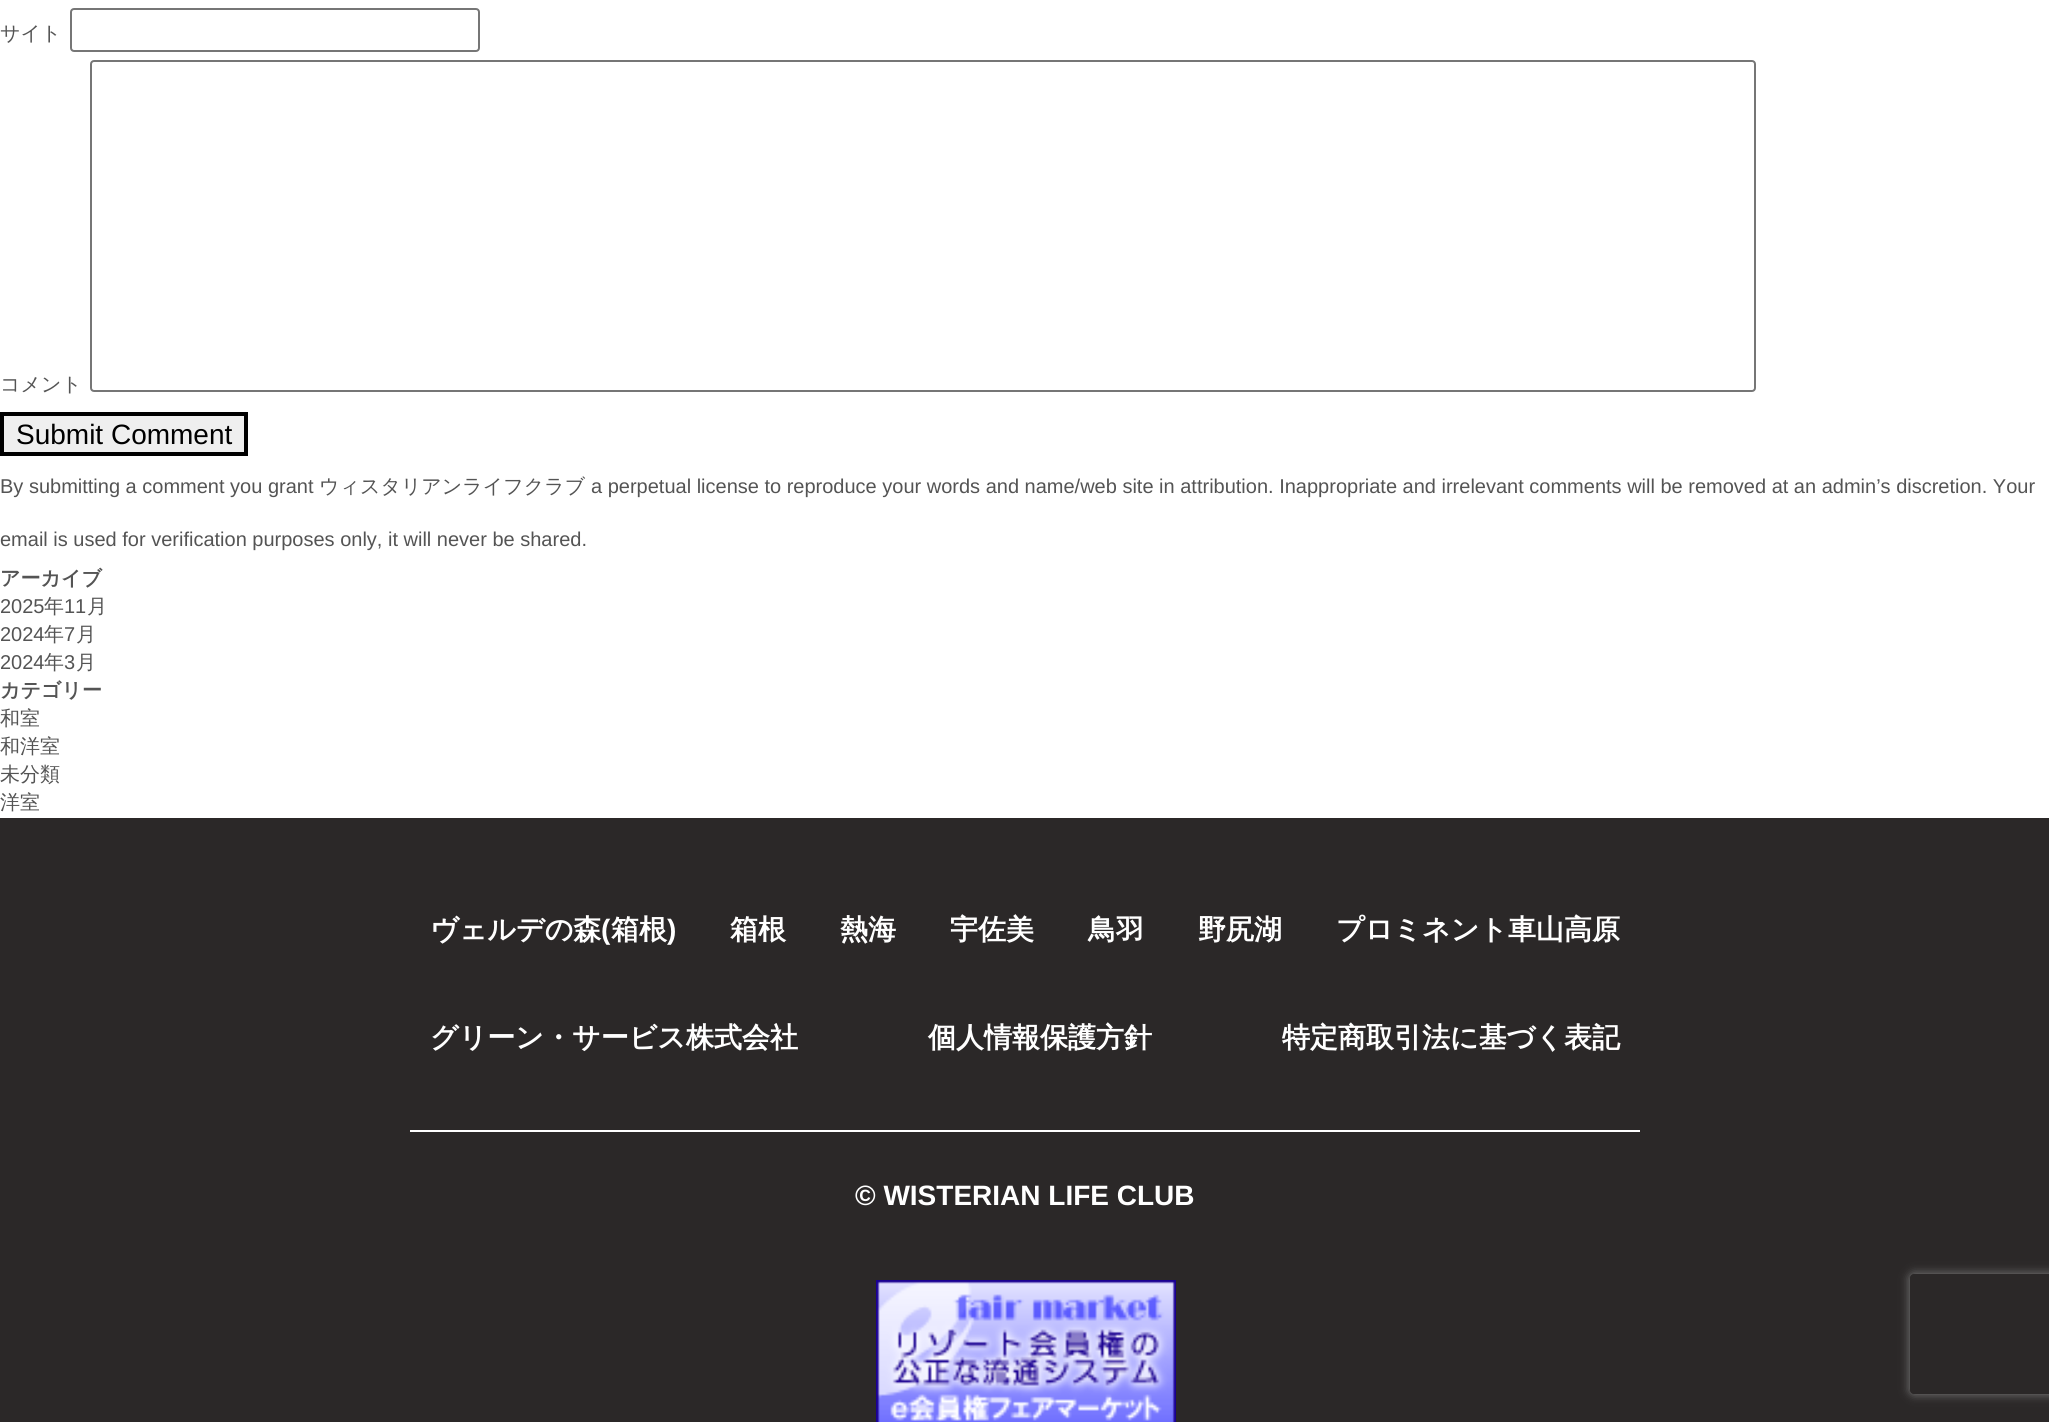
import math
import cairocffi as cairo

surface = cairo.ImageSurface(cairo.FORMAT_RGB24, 2049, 1422)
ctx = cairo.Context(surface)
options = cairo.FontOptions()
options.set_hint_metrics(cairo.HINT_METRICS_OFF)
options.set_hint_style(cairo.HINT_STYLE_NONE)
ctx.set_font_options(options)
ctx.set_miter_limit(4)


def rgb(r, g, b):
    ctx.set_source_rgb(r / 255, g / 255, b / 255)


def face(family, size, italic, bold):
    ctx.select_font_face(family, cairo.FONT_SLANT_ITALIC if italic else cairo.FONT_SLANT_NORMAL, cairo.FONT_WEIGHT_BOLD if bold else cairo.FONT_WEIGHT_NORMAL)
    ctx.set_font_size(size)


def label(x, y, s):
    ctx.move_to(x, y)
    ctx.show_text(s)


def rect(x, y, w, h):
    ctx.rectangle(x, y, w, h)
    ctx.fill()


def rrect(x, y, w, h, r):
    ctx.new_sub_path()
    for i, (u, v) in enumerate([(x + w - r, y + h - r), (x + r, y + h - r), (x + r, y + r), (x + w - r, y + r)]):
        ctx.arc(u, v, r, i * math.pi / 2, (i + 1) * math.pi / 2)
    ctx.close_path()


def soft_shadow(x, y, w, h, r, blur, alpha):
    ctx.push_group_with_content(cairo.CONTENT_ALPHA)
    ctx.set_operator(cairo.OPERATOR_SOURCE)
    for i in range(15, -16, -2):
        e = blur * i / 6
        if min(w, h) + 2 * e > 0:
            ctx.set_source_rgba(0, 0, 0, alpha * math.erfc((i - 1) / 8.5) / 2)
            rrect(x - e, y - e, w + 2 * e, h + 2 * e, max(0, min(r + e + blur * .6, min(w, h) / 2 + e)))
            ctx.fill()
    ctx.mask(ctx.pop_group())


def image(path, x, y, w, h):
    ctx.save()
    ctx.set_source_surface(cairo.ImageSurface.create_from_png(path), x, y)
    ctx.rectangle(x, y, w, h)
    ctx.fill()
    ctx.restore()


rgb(255, 255, 255)
ctx.paint()
face('WenQuanYi Zen Hei Medium', 20, 0, 0)
rgb(84, 84, 84)
label(0, 40, 'サイト')
rrect(71, 9, 408, 42, 3)
rgb(118, 118, 118)
ctx.stroke()
rgb(84, 84, 84)
label(0, 391, 'コメント')
rrect(91, 61, 1664, 330, 3)
rgb(118, 118, 118)
ctx.stroke()
rgb(239, 239, 239)
ctx.rectangle(2, 414, 244, 40)
ctx.fill_preserve()
rgb(0, 0, 0)
ctx.set_line_width(4)
ctx.stroke()
face('Liberation Sans', 28, 0, 0)
label(16, 444, 'Submit Comment')
face('Liberation Sans', 20, 0, 0)
rgb(84, 84, 84)
label(0, 493, 'By submitting a comment you grant')
face('WenQuanYi Zen Hei Medium', 20, 0, 0)
label(319, 493, 'ウィスタリアンライフクラブ')
face('Liberation Sans', 20, 0, 0)
label(591, 493, 'a perpetual license to reproduce your words and name/web site in attribution. Inappropriate and irrelevant comments will be removed at an admin’s discretion. Your')
label(0, 546, 'email is used for verification purposes only, it will never be shared.')
face('WenQuanYi Zen Hei', 20, 0, 1)
label(0, 585, 'アーカイブ')
face('Liberation Sans', 20, 0, 0)
label(0, 613, '2025')
face('WenQuanYi Zen Hei Medium', 20, 0, 0)
label(44, 613, '年')
face('Liberation Sans', 20, 0, 0)
label(64, 613, '11')
face('WenQuanYi Zen Hei Medium', 20, 0, 0)
label(87, 613, '月')
face('Liberation Sans', 20, 0, 0)
label(0, 641, '2024')
face('WenQuanYi Zen Hei Medium', 20, 0, 0)
label(44, 641, '年')
face('Liberation Sans', 20, 0, 0)
label(64, 641, '7')
face('WenQuanYi Zen Hei Medium', 20, 0, 0)
label(76, 641, '月')
face('Liberation Sans', 20, 0, 0)
label(0, 669, '2024')
face('WenQuanYi Zen Hei Medium', 20, 0, 0)
label(44, 669, '年')
face('Liberation Sans', 20, 0, 0)
label(64, 669, '3')
face('WenQuanYi Zen Hei Medium', 20, 0, 0)
label(76, 669, '月')
face('WenQuanYi Zen Hei', 20, 0, 1)
label(0, 697, 'カテゴリー')
face('WenQuanYi Zen Hei Medium', 20, 0, 0)
label(0, 725, '和室')
label(0, 753, '和洋室')
label(0, 781, '未分類')
label(0, 809, '洋室')
rgb(43, 40, 40)
rect(0, 818, 2049, 604)
face('WenQuanYi Zen Hei', 28, 0, 1)
rgb(255, 255, 255)
label(430, 939, 'ヴェルデの森')
face('Liberation Sans', 28, 0, 1)
label(601, 939, '(')
face('WenQuanYi Zen Hei', 28, 0, 1)
label(611, 939, '箱根')
face('Liberation Sans', 28, 0, 1)
label(667, 939, ')')
face('WenQuanYi Zen Hei', 28, 0, 1)
label(730, 939, '箱根')
label(840, 939, '熱海')
label(950, 939, '宇佐美')
label(1088, 939, '鳥羽')
label(1198, 939, '野尻湖')
label(1336, 939, 'プロミネント車山高原')
rect(410, 1130, 1230, 2)
label(430, 1047, 'グリーン・サービス株式会社')
label(928, 1047, '個人情報保護方針')
label(1282, 1047, '特定商取引法に基づく表記')
face('Liberation Sans', 28, 0, 1)
label(855, 1205, '© WISTERIAN LIFE CLUB')
image('image0.png', 876, 1280, 300, 142)
ctx.save()
ctx.set_fill_rule(cairo.FILL_RULE_EVEN_ODD)
ctx.new_path()
ctx.move_to(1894, 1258)
ctx.line_to(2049, 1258)
ctx.line_to(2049, 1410)
ctx.line_to(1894, 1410)
ctx.close_path()
ctx.move_to(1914, 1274)
ctx.line_to(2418, 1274)
ctx.curve_to(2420, 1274, 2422, 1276, 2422, 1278)
ctx.line_to(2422, 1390)
ctx.curve_to(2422, 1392, 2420, 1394, 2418, 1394)
ctx.line_to(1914, 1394)
ctx.curve_to(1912, 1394, 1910, 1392, 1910, 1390)
ctx.line_to(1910, 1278)
ctx.curve_to(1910, 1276, 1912, 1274, 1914, 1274)
ctx.close_path()
ctx.clip()
rgb(128, 128, 128)
soft_shadow(1910, 1274, 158, 120, 4, 5, 1)
ctx.restore()
surface.write_to_png('render.png')
